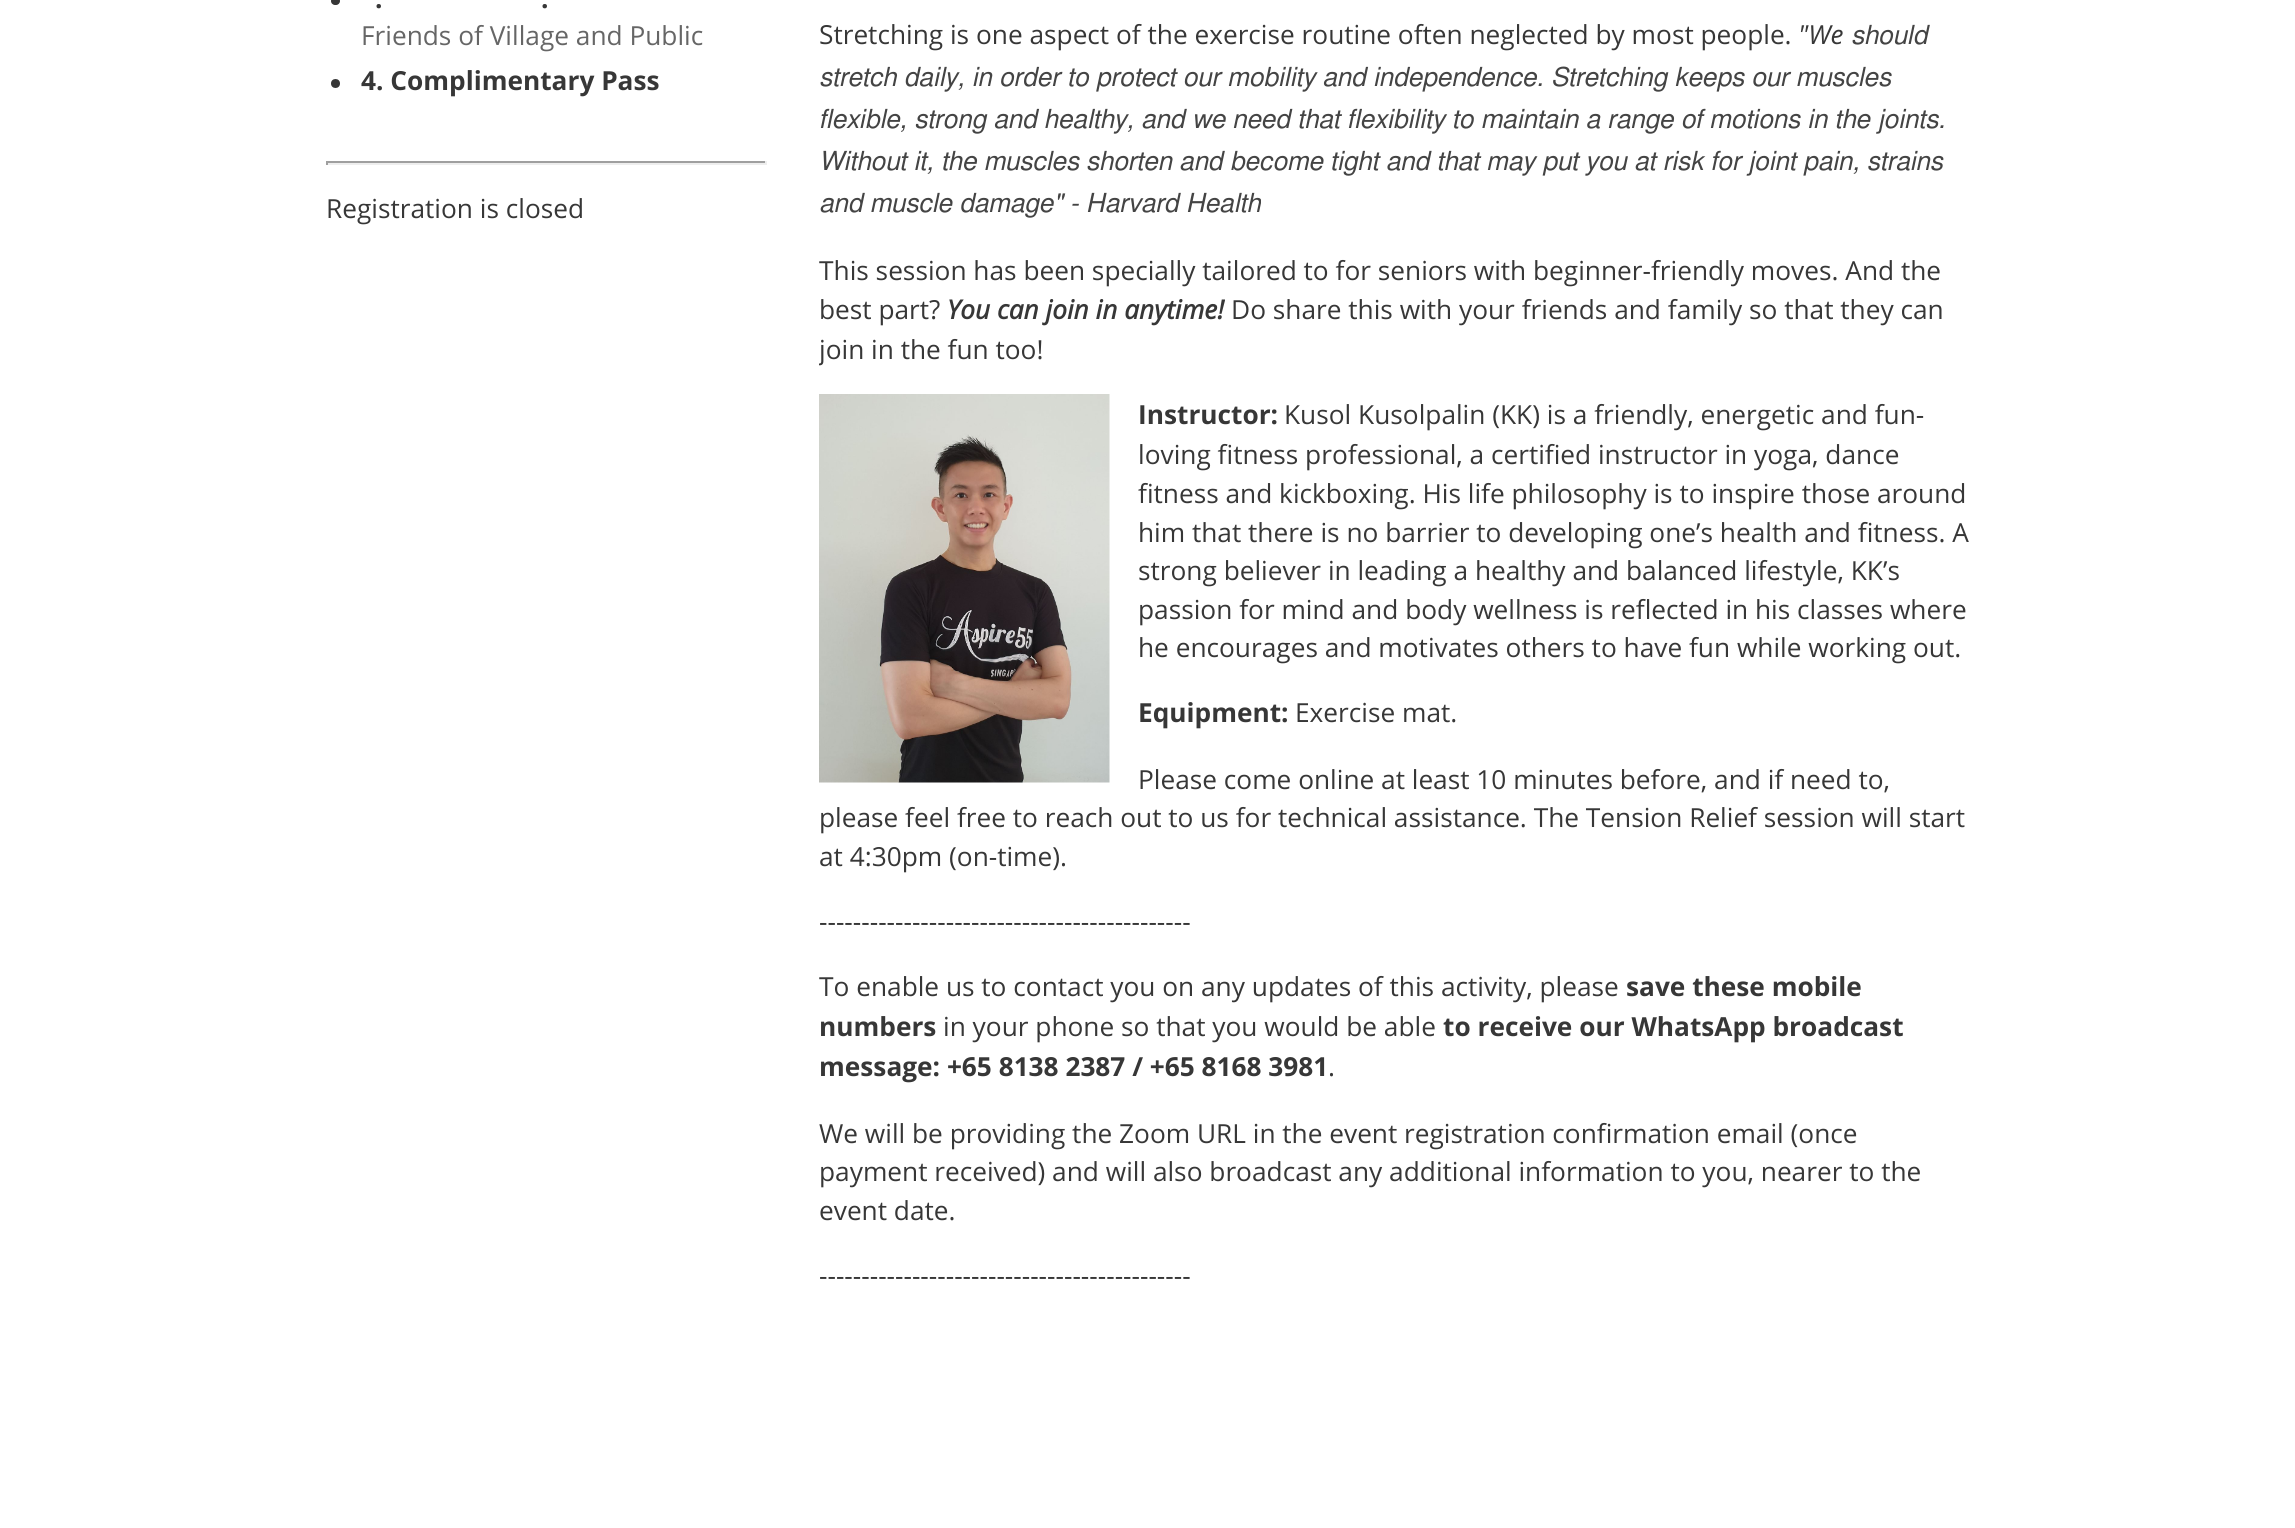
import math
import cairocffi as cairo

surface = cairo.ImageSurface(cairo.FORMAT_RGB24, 2295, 1528)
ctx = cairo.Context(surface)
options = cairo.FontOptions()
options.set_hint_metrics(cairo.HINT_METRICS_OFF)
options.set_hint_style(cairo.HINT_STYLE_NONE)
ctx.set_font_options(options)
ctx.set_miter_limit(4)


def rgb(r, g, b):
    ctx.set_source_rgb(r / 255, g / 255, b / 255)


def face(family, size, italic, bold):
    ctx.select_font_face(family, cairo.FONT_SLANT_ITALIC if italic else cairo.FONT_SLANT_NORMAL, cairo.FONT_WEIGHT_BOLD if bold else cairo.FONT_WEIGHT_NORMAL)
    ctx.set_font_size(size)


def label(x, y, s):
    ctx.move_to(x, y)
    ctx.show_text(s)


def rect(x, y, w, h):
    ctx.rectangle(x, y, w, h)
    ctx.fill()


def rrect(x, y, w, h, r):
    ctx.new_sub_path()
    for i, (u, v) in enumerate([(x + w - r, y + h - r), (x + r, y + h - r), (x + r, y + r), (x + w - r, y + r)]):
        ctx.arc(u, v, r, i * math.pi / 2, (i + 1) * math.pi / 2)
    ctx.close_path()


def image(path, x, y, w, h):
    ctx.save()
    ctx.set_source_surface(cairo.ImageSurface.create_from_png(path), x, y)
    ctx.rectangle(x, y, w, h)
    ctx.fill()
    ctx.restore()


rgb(255, 255, 255)
ctx.paint()
rgb(55, 55, 55)
rrect(331, -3, 9, 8, 4)
ctx.fill()
face('Open Sans', 26.25, 0, 1)
label(375, 8, '.')
label(541, 8, '.')
face('Open Sans', 26.25, 0, 0)
rgb(102, 102, 102)
label(361, 45, 'Friends of Village and Public')
rgb(55, 55, 55)
ctx.new_path()
ctx.arc(335.5, 83.5, 4.5, 0, 2 * math.pi)
ctx.fill()
face('Open Sans', 26.25, 0, 1)
label(361, 90, '4. Complimentary Pass')
rgb(159, 159, 159)
rect(326, 161, 441, 2)
rgb(238, 238, 238)
rect(765, 161, 2, 4)
rect(326, 163, 441, 2)
rgb(159, 159, 159)
rect(326, 161, 2, 4)
face('Open Sans', 26.25, 0, 0)
rgb(55, 55, 55)
label(326, 218, 'Registration is closed')
label(819, 44, 'Stretching is one aspect of the exercise routine often neglected by most people.')
face('Open Sans', 26.25, 1, 0)
label(1798, 44, '"We')
face('FreeSans', 26.25, 1, 0)
rgb(68, 68, 68)
label(1851, 44, 'should')
label(819, 86, 'stretch daily, in order to protect our mobility and independence. Stretching keeps our muscles')
label(819, 128, 'flexible, strong and healthy, and we need that flexibility to maintain a range of motions in the joints.')
label(819, 170, 'Without it, the muscles shorten and become tight and that may put you at risk for joint pain, strains')
label(819, 212, 'and muscle damage" - Harvard Health')
face('Open Sans', 26.25, 0, 0)
rgb(55, 55, 55)
label(819, 280, 'This session has been specially tailored to for seniors with beginner-friendly moves. And the')
label(819, 319, 'best part?')
face('Open Sans', 26.25, 1, 1)
label(947, 319, 'You can join in anytime!')
face('Open Sans', 26.25, 0, 0)
label(1231, 319, 'Do share this with your friends and family so that they can')
ctx.save()
ctx.rectangle(819, 0, 1152, 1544)
ctx.clip()
label(819, 359, 'join in the fun too!')
ctx.restore()
image('image0.png', 819, 394, 291, 389)
face('Open Sans', 26.25, 0, 1)
label(1138, 424, 'Instructor:')
face('Open Sans', 26.25, 0, 0)
label(1284, 424, 'Kusol Kusolpalin (KK) is a friendly, energetic and fun-')
label(1138, 464, 'loving fitness professional, a certified instructor in yoga, dance')
label(1138, 503, 'fitness and kickboxing. His life philosophy is to inspire those around')
label(1138, 542, 'him that there is no barrier to developing one’s health and fitness. A')
label(1138, 580, 'strong believer in leading a healthy and balanced lifestyle, KK’s')
label(1138, 619, 'passion for mind and body wellness is reflected in his classes where')
label(1138, 657, 'he encourages and motivates others to have fun while working out.')
face('Open Sans', 26.25, 0, 1)
label(1138, 722, 'Equipment:')
face('Open Sans', 26.25, 0, 0)
label(1295, 722, 'Exercise mat.')
label(1138, 789, 'Please come online at least 10 minutes before, and if need to,')
label(819, 827, 'please feel free to reach out to us for technical assistance. The Tension Relief session will start')
label(819, 866, 'at 4:30pm (on-time).')
label(819, 931, '--------------------------------------------')
label(819, 996, 'To enable us to contact you on any updates of this activity, please')
face('Open Sans', 26.25, 0, 1)
label(1626, 996, 'save these mobile')
label(819, 1036, 'numbers')
face('Open Sans', 26.25, 0, 0)
label(943, 1036, 'in your phone so that you would be able')
face('Open Sans', 26.25, 0, 1)
label(1443, 1036, 'to receive our WhatsApp broadcast')
label(819, 1076, 'message: +65 8138 2387 / +65 8168 3981')
face('Open Sans', 26.25, 0, 0)
label(1328, 1076, '.')
label(819, 1143, 'We will be providing the Zoom URL in the event registration confirmation email (once')
label(819, 1181, 'payment received) and will also broadcast any additional information to you, nearer to the')
label(819, 1220, 'event date.')
label(819, 1285, '--------------------------------------------')
surface.write_to_png('render.png')
